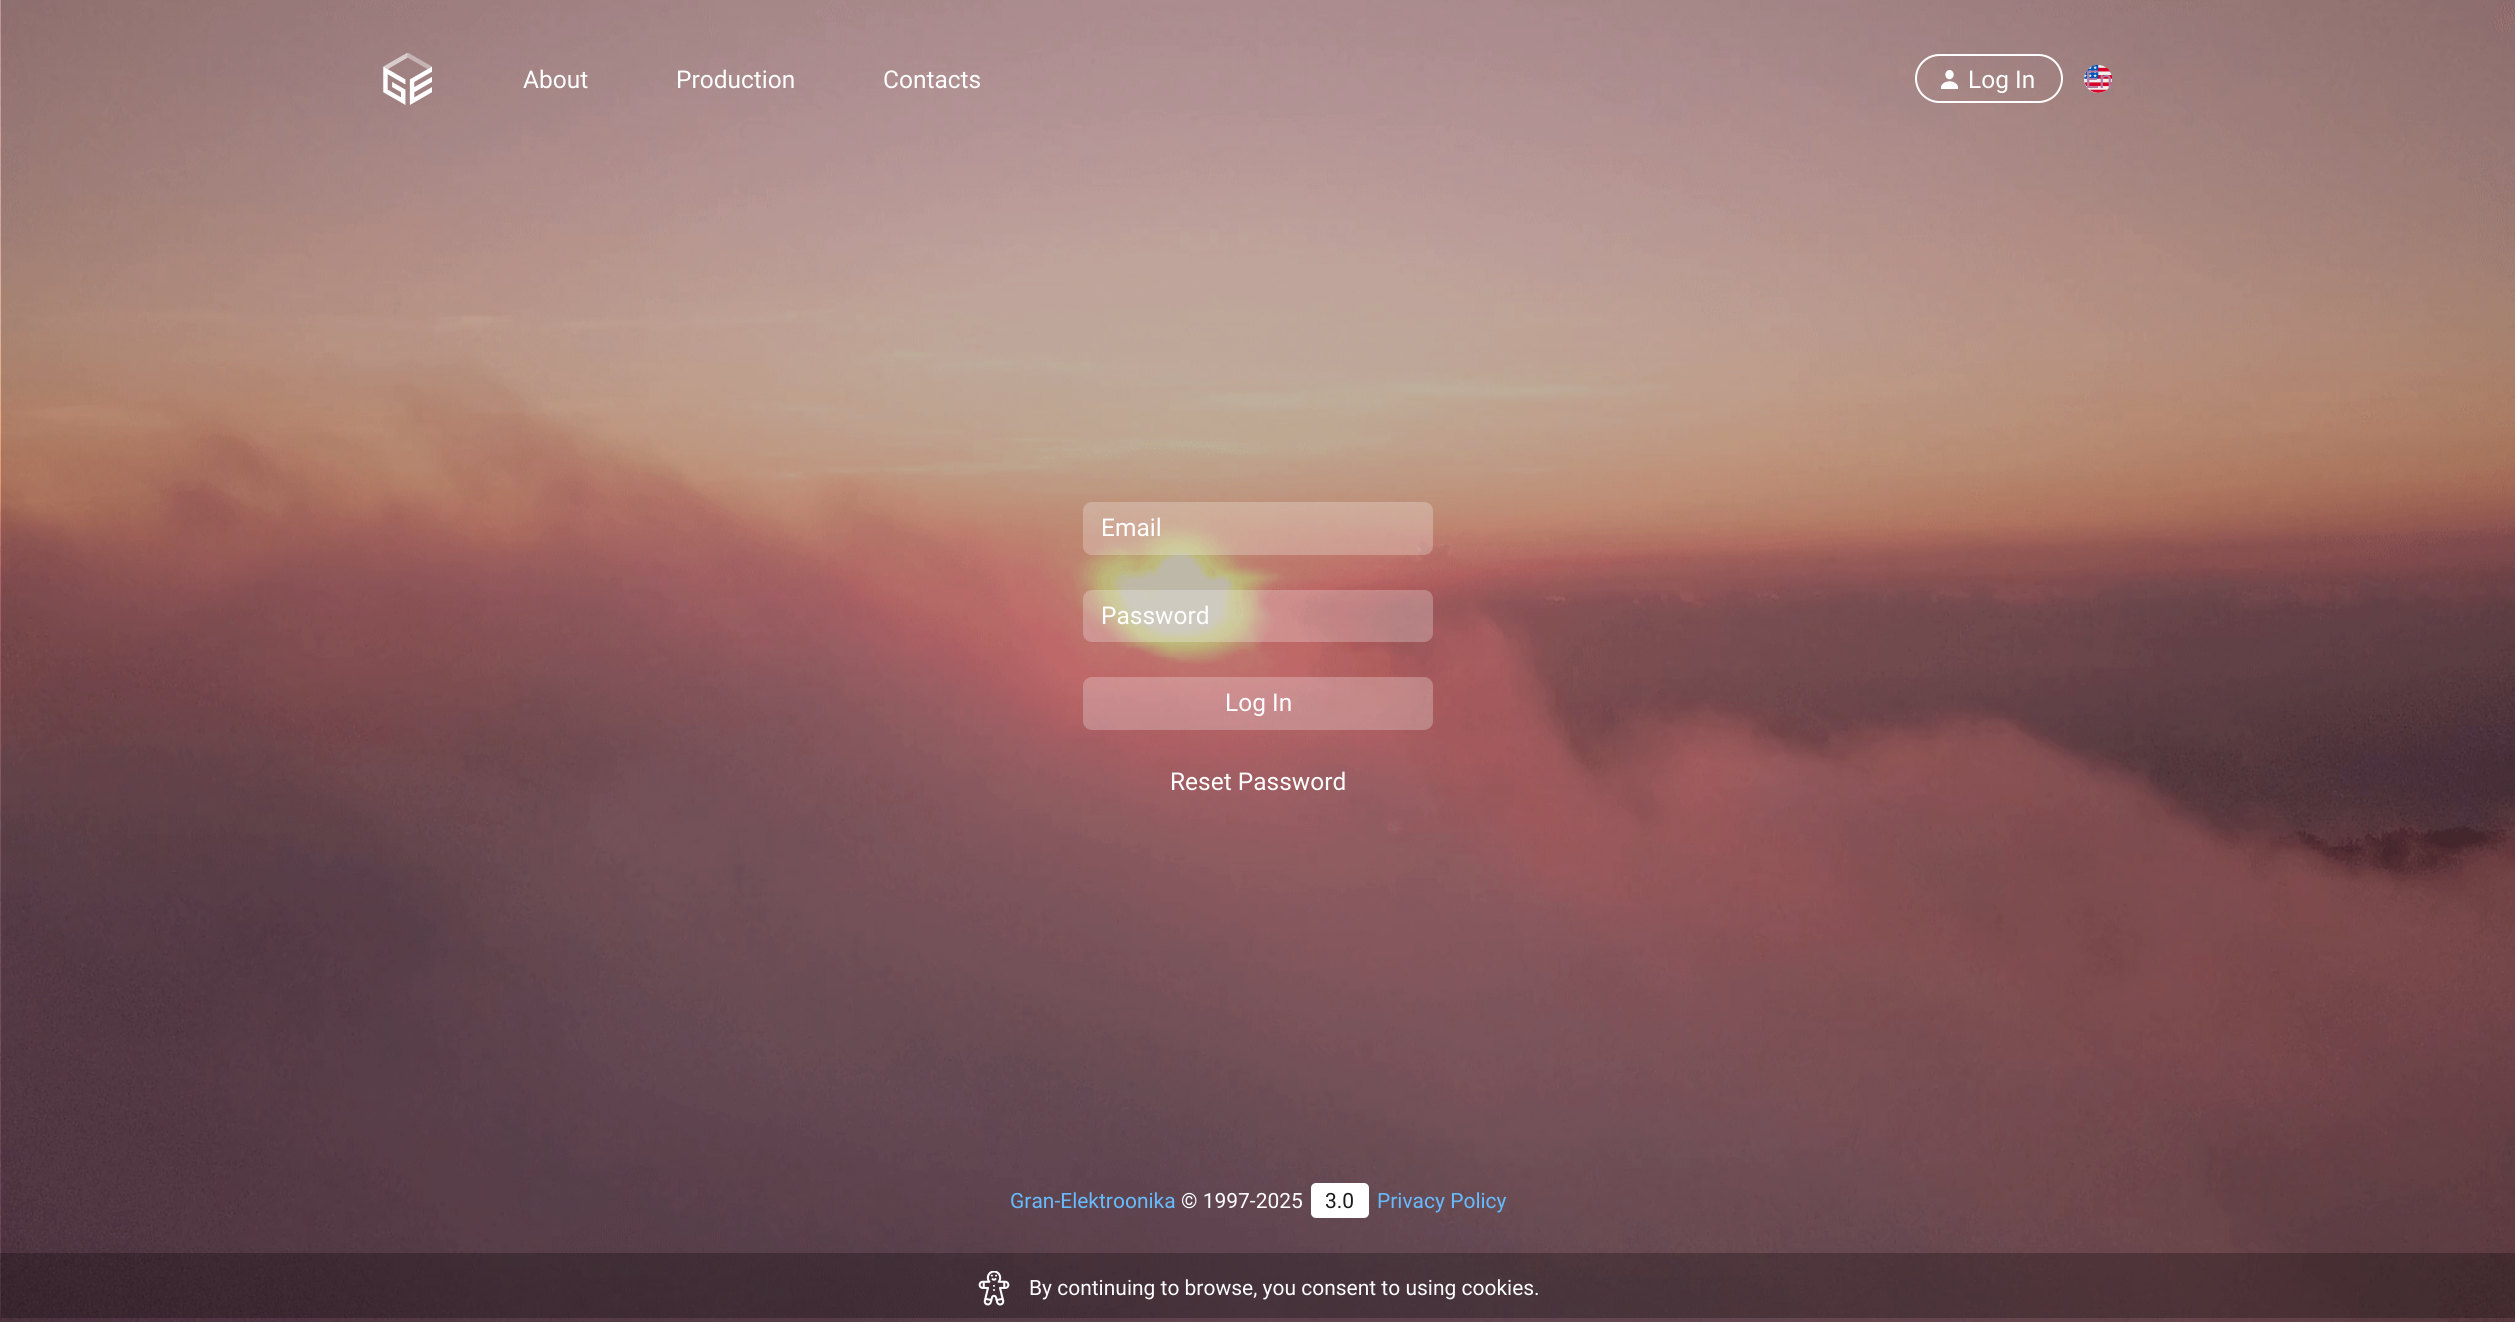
import math
import cairocffi as cairo

surface = cairo.ImageSurface(cairo.FORMAT_RGB24, 2515, 1322)
ctx = cairo.Context(surface)
options = cairo.FontOptions()
options.set_hint_metrics(cairo.HINT_METRICS_OFF)
options.set_hint_style(cairo.HINT_STYLE_NONE)
ctx.set_font_options(options)
ctx.set_miter_limit(4)


def rgb(r, g, b):
    ctx.set_source_rgb(r / 255, g / 255, b / 255)


def face(family, size, italic, bold):
    ctx.select_font_face(family, cairo.FONT_SLANT_ITALIC if italic else cairo.FONT_SLANT_NORMAL, cairo.FONT_WEIGHT_BOLD if bold else cairo.FONT_WEIGHT_NORMAL)
    ctx.set_font_size(size)


def label(x, y, s):
    ctx.move_to(x, y)
    ctx.show_text(s)


def rect(x, y, w, h):
    ctx.rectangle(x, y, w, h)
    ctx.fill()


def rrect(x, y, w, h, r):
    ctx.new_sub_path()
    for i, (u, v) in enumerate([(x + w - r, y + h - r), (x + r, y + h - r), (x + r, y + r), (x + w - r, y + r)]):
        ctx.arc(u, v, r, i * math.pi / 2, (i + 1) * math.pi / 2)
    ctx.close_path()


def image(path, x, y, w, h):
    ctx.save()
    ctx.set_source_surface(cairo.ImageSurface.create_from_png(path), x, y)
    ctx.rectangle(x, y, w, h)
    ctx.fill()
    ctx.restore()


rgb(255, 255, 255)
ctx.paint()
image('image3.png', 0, 0, 2515, 1322)
image('image4.png', 1, 0, 2514, 1318)
image('image0.png', 383, 53, 49, 52)
face('Roboto', 24.5, 0, 0)
rgb(255, 255, 255)
label(523, 88, 'About')
label(676, 88, 'Production')
label(883, 88, 'Contacts')
image('image1.png', 1941, 70, 17, 19)
rrect(1916, 55, 146, 47, 23.5)
ctx.stroke()
label(1968, 88, 'Log In')
image('image2.png', 2084, 65, 28, 28)
rgb(175, 125, 160)
label(2085, 88, 'En')
ctx.set_source_rgba(1, 1, 1, 0.25)
rrect(1083, 502, 350, 53, 9)
ctx.fill()
rgb(255, 255, 255)
label(1101, 536, 'Email')
ctx.set_source_rgba(1, 1, 1, 0.25)
rrect(1083, 590, 350, 52, 9)
ctx.fill()
rgb(255, 255, 255)
label(1101, 624, 'Password')
ctx.set_source_rgba(1, 1, 1, 0.25)
rrect(1083, 677, 350, 53, 9)
ctx.fill()
rgb(255, 255, 255)
label(1225, 711, 'Log In')
label(1170, 790, 'Reset Password')
face('Roboto', 21, 0, 0)
rgb(102, 187, 255)
label(1010, 1208, 'Gran-Elektroonika')
rgb(255, 255, 255)
label(1181, 1208, '© 1997-2025')
rrect(1311, 1183, 58, 35, 5)
ctx.fill()
rgb(26, 26, 26)
label(1325, 1208, '3.0')
rgb(102, 187, 255)
label(1377, 1208, 'Privacy Policy')
ctx.set_source_rgba(0, 0, 0, 0.25)
rect(0, 1253, 2515, 69)
image('image5.png', 978, 1271, 32, 35)
rgb(255, 255, 255)
label(1029, 1295, 'By continuing to browse, you consent to using cookies.')
surface.write_to_png('render.png')
